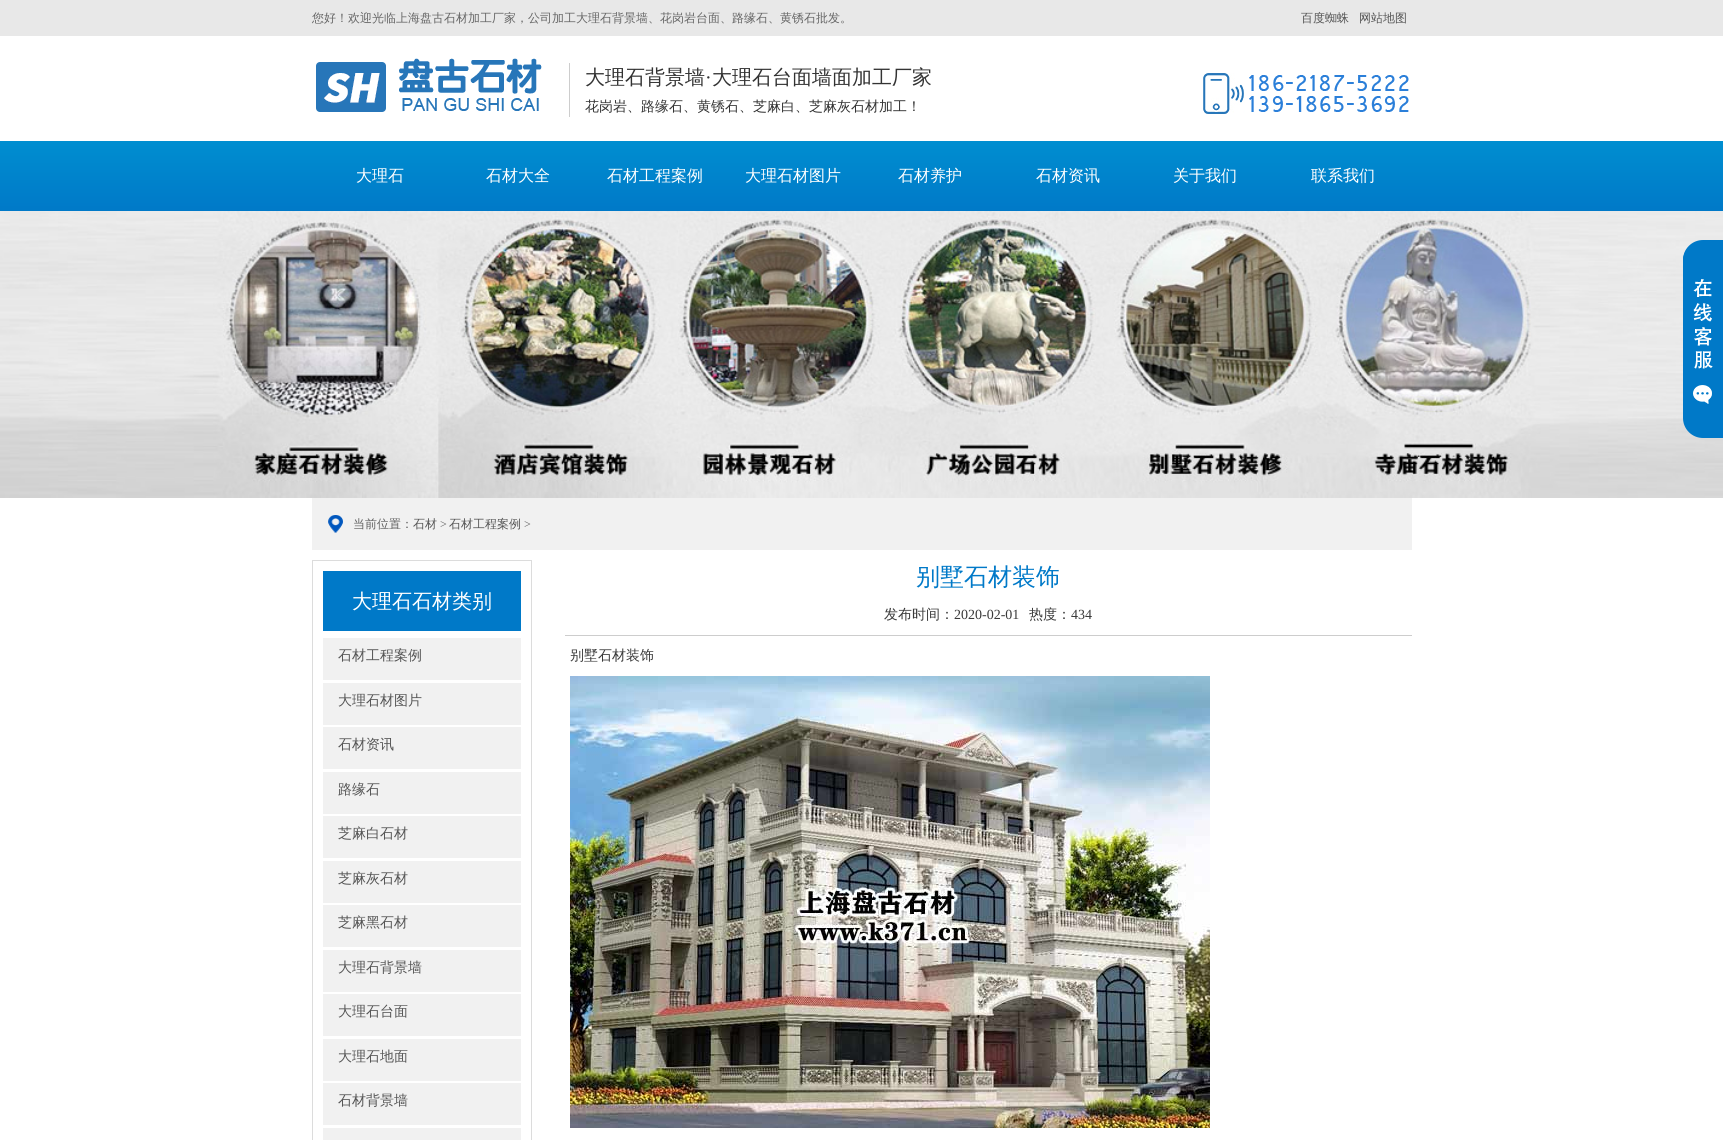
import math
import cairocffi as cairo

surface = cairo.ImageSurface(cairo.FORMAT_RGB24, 1723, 1140)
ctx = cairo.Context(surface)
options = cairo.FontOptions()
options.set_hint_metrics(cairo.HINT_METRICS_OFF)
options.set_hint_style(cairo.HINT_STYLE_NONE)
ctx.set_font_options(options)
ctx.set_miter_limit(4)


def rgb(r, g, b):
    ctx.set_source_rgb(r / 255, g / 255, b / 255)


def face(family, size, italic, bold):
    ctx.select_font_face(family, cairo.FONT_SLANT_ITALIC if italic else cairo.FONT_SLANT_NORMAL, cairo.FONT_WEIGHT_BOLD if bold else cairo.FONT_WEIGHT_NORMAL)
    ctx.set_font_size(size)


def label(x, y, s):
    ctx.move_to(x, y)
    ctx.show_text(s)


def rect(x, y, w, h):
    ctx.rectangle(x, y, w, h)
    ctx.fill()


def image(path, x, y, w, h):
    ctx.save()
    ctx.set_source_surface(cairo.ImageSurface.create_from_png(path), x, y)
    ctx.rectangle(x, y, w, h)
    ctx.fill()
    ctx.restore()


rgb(255, 255, 255)
ctx.paint()
rgb(232, 232, 232)
rect(0, 0, 1723, 36)
face('WenQuanYi Zen Hei Medium', 12, 0, 0)
rgb(102, 102, 102)
label(312, 22, '您好！欢迎光临上海盘古石材加工厂家，公司加工大理石背景墙、花岗岩台面、路缘石、黄锈石批发。')
rgb(85, 85, 85)
label(1301, 22, '百度蜘蛛')
label(1359, 22, '网站地图')
image('image0.png', 316, 58, 226, 54)
rgb(205, 205, 205)
rect(569, 63, 1, 54)
face('WenQuanYi Zen Hei Medium', 20, 0, 0)
rgb(51, 51, 51)
label(585, 84, '大理石背景墙')
face('Liberation Serif', 20, 0, 0)
label(705, 84, '·')
face('WenQuanYi Zen Hei Medium', 20, 0, 0)
label(712, 84, '大理石台面墙面加工厂家')
face('WenQuanYi Zen Hei Medium', 14, 0, 0)
label(585, 111, '花岗岩、路缘石、黄锈石、芝麻白、芝麻灰石材加工！')
image('image1.png', 1203, 73, 206, 41)
gradient = cairo.LinearGradient(862, 211, 862, 141)
gradient.add_color_stop_rgba(0, 0, 0.475, 0.784, 1)
gradient.add_color_stop_rgba(1, 0, 0.557, 0.816, 1)
ctx.set_source(gradient)
rect(0, 141, 1723, 70)
face('WenQuanYi Zen Hei Medium', 16, 0, 0)
rgb(255, 255, 255)
label(356, 181, '大理石')
label(486, 181, '石材大全')
label(607, 181, '石材工程案例')
label(745, 181, '大理石材图片')
label(898, 181, '石材养护')
label(1036, 181, '石材资讯')
label(1173, 181, '关于我们')
label(1311, 181, '联系我们')
image('image2.png', 0, 211, 1723, 287)
image('image3.png', 1683, 240, 40, 198)
rgb(241, 241, 241)
rect(312, 498, 1100, 52)
image('image4.png', 328, 515, 15, 18)
face('WenQuanYi Zen Hei Medium', 12, 0, 0)
rgb(95, 95, 95)
label(353, 528, '当前位置：')
rgb(85, 85, 85)
label(413, 528, '石材')
face('Liberation Serif', 12, 0, 0)
rgb(95, 95, 95)
label(440, 528, '>')
face('WenQuanYi Zen Hei Medium', 12, 0, 0)
rgb(85, 85, 85)
label(449, 528, '石材工程案例')
face('Liberation Serif', 12, 0, 0)
rgb(95, 95, 95)
label(524, 528, '>')
ctx.rectangle(312.5, 560.5, 219, 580)
rgb(220, 220, 220)
ctx.set_line_width(1)
ctx.stroke()
rgb(0, 121, 200)
rect(323, 571, 198, 60)
face('WenQuanYi Zen Hei Medium', 20, 0, 0)
rgb(255, 255, 255)
label(352, 608, '大理石石材类别')
rgb(241, 241, 241)
rect(323, 638, 198, 42)
face('WenQuanYi Zen Hei Medium', 14, 0, 0)
rgb(85, 85, 85)
label(338, 660, '石材工程案例')
rgb(241, 241, 241)
rect(323, 683, 198, 42)
rgb(85, 85, 85)
label(338, 705, '大理石材图片')
rgb(241, 241, 241)
rect(323, 727, 198, 42)
rgb(85, 85, 85)
label(338, 749, '石材资讯')
rgb(241, 241, 241)
rect(323, 772, 198, 42)
rgb(85, 85, 85)
label(338, 794, '路缘石')
rgb(241, 241, 241)
rect(323, 816, 198, 42)
rgb(85, 85, 85)
label(338, 838, '芝麻白石材')
rgb(241, 241, 241)
rect(323, 861, 198, 42)
rgb(85, 85, 85)
label(338, 883, '芝麻灰石材')
rgb(241, 241, 241)
rect(323, 905, 198, 42)
rgb(85, 85, 85)
label(338, 927, '芝麻黑石材')
rgb(241, 241, 241)
rect(323, 950, 198, 42)
rgb(85, 85, 85)
label(338, 972, '大理石背景墙')
rgb(241, 241, 241)
rect(323, 994, 198, 42)
rgb(85, 85, 85)
label(338, 1016, '大理石台面')
rgb(241, 241, 241)
rect(323, 1039, 198, 42)
rgb(85, 85, 85)
label(338, 1061, '大理石地面')
rgb(241, 241, 241)
rect(323, 1083, 198, 42)
rgb(85, 85, 85)
label(338, 1105, '石材背景墙')
rgb(241, 241, 241)
rect(323, 1128, 198, 12)
face('WenQuanYi Zen Hei Medium', 24, 0, 0)
rgb(0, 121, 200)
label(916, 585, '别墅石材装饰')
rgb(205, 205, 205)
rect(565, 635, 847, 1)
face('WenQuanYi Zen Hei Medium', 14, 0, 0)
rgb(57, 57, 57)
label(884, 619, '发布时间：')
face('Liberation Serif', 14, 0, 0)
label(954, 619, '2020-02-01')
face('WenQuanYi Zen Hei Medium', 14, 0, 0)
label(1029, 619, '热度：')
face('Liberation Serif', 14, 0, 0)
label(1071, 619, '434')
face('WenQuanYi Zen Hei Medium', 14, 0, 0)
label(570, 660, '别墅石材装饰')
image('image5.png', 570, 676, 640, 452)
surface.write_to_png('render.png')
